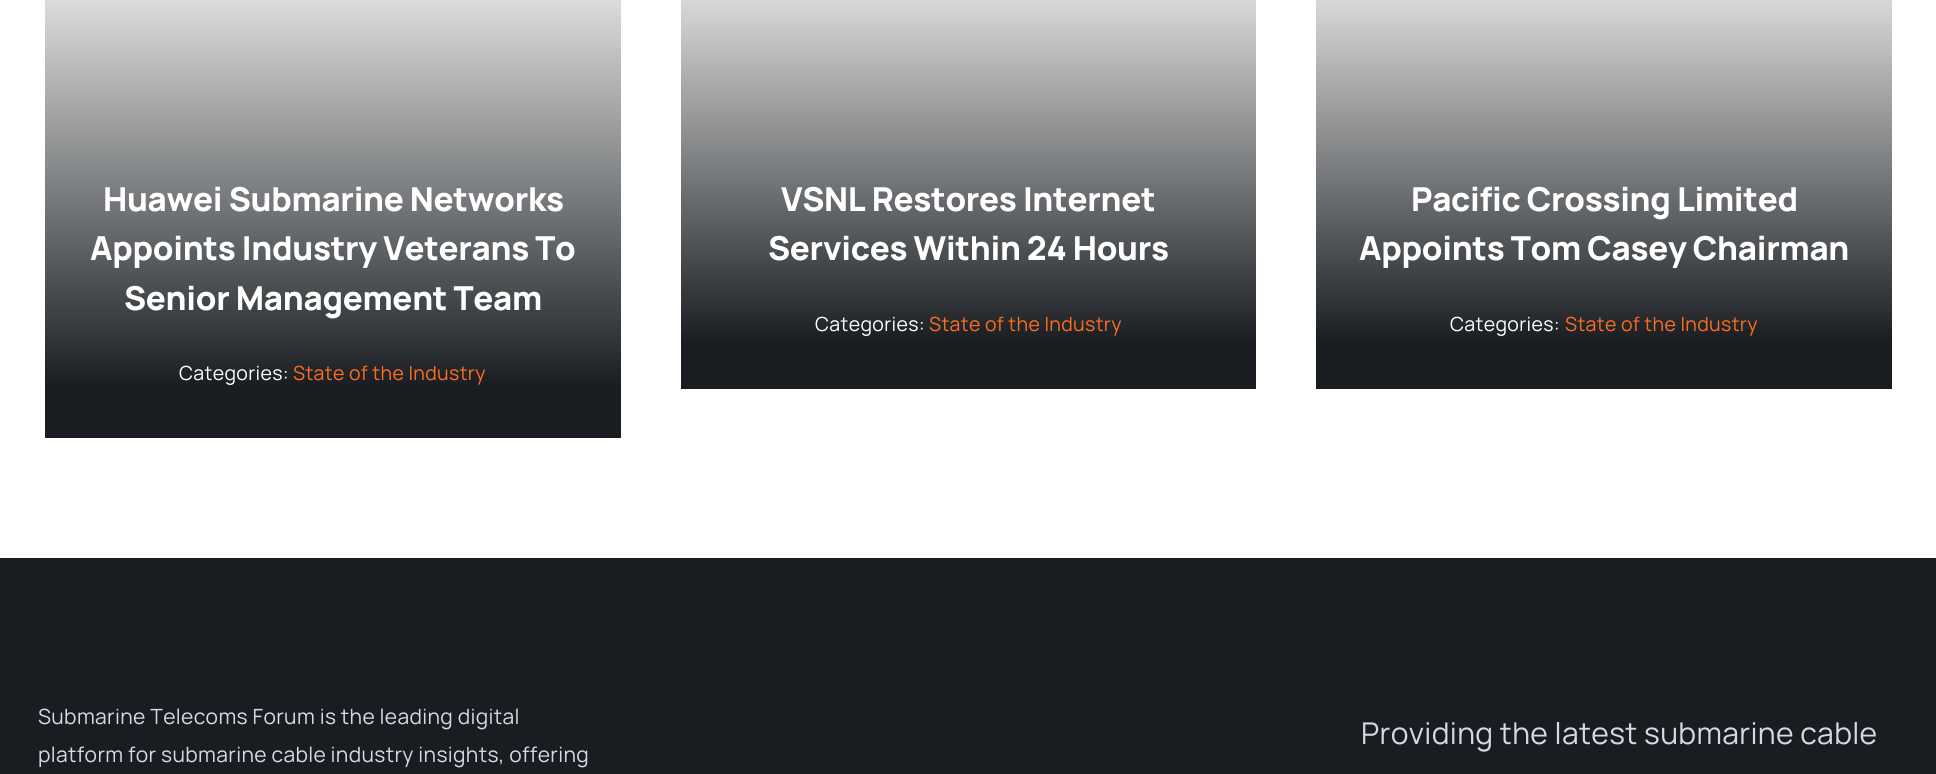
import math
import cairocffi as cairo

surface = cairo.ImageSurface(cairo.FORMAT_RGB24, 1936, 774)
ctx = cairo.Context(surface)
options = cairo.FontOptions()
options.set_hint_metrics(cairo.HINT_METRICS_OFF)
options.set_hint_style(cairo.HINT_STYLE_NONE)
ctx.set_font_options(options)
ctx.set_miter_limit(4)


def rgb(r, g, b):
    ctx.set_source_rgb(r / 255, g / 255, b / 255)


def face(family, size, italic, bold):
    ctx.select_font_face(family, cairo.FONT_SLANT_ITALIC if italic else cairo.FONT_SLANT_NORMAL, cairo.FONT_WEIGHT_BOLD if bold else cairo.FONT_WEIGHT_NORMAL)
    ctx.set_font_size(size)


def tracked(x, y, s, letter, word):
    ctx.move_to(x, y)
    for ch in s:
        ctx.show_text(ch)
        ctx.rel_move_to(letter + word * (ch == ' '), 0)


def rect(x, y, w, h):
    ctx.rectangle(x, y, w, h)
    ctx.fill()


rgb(255, 255, 255)
ctx.paint()
gradient = cairo.LinearGradient(333, -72, 333, 438)
gradient.add_color_stop_rgba(0, 1, 1, 1, 1)
gradient.add_color_stop_rgba(0.9, 0.098, 0.114, 0.129, 1)
ctx.set_source(gradient)
rect(45, 0, 576, 438)
face('Manrope ExtraBold', 33, 0, 0)
rgb(255, 255, 255)
tracked(103, 211, 'Huawei Submarine Networks', -0.3, 0)
tracked(90, 260, 'Appoints Industry Veterans To', -0.3, 0)
tracked(124, 310, 'Senior Management Team', -0.3, 0)
face('Manrope', 19.5, 0, 0)
tracked(179, 380, 'Categories:', 0.35, 0)
rgb(255, 109, 32)
tracked(293, 380, 'State of the Industry', 0.35, 0)
gradient = cairo.LinearGradient(968, -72, 968, 389)
gradient.add_color_stop_rgba(0, 1, 1, 1, 1)
gradient.add_color_stop_rgba(0.9, 0.098, 0.114, 0.129, 1)
ctx.set_source(gradient)
rect(681, 0, 575, 389)
face('Manrope ExtraBold', 33, 0, 0)
rgb(255, 255, 255)
tracked(781, 211, 'VSNL Restores Internet', -0.3, 0)
tracked(768, 260, 'Services Within 24 Hours', -0.3, 0)
face('Manrope', 19.5, 0, 0)
tracked(815, 331, 'Categories:', 0.35, 0)
rgb(255, 109, 32)
tracked(929, 331, 'State of the Industry', 0.35, 0)
gradient = cairo.LinearGradient(1604, -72, 1604, 389)
gradient.add_color_stop_rgba(0, 1, 1, 1, 1)
gradient.add_color_stop_rgba(0.9, 0.098, 0.114, 0.129, 1)
ctx.set_source(gradient)
rect(1316, 0, 576, 389)
face('Manrope ExtraBold', 33, 0, 0)
rgb(255, 255, 255)
tracked(1411, 211, 'Pacific Crossing Limited', -0.3, 0)
tracked(1359, 260, 'Appoints Tom Casey Chairman', -0.3, 0)
face('Manrope', 19.5, 0, 0)
tracked(1450, 331, 'Categories:', 0.35, 0)
rgb(255, 109, 32)
tracked(1565, 331, 'State of the Industry', 0.35, 0)
rgb(25, 29, 33)
rect(0, 558, 1936, 216)
face('Manrope', 21, 0, 0)
rgb(210, 219, 226)
tracked(38, 724, 'Submarine Telecoms Forum is the leading digital', 0.35, 0)
tracked(38, 762, 'platform for submarine cable industry insights, offering', 0.35, 0)
face('Manrope', 30, 0, 0)
tracked(1361, 744, 'Providing the latest submarine cable', 0.35, 0)
surface.write_to_png('render.png')
